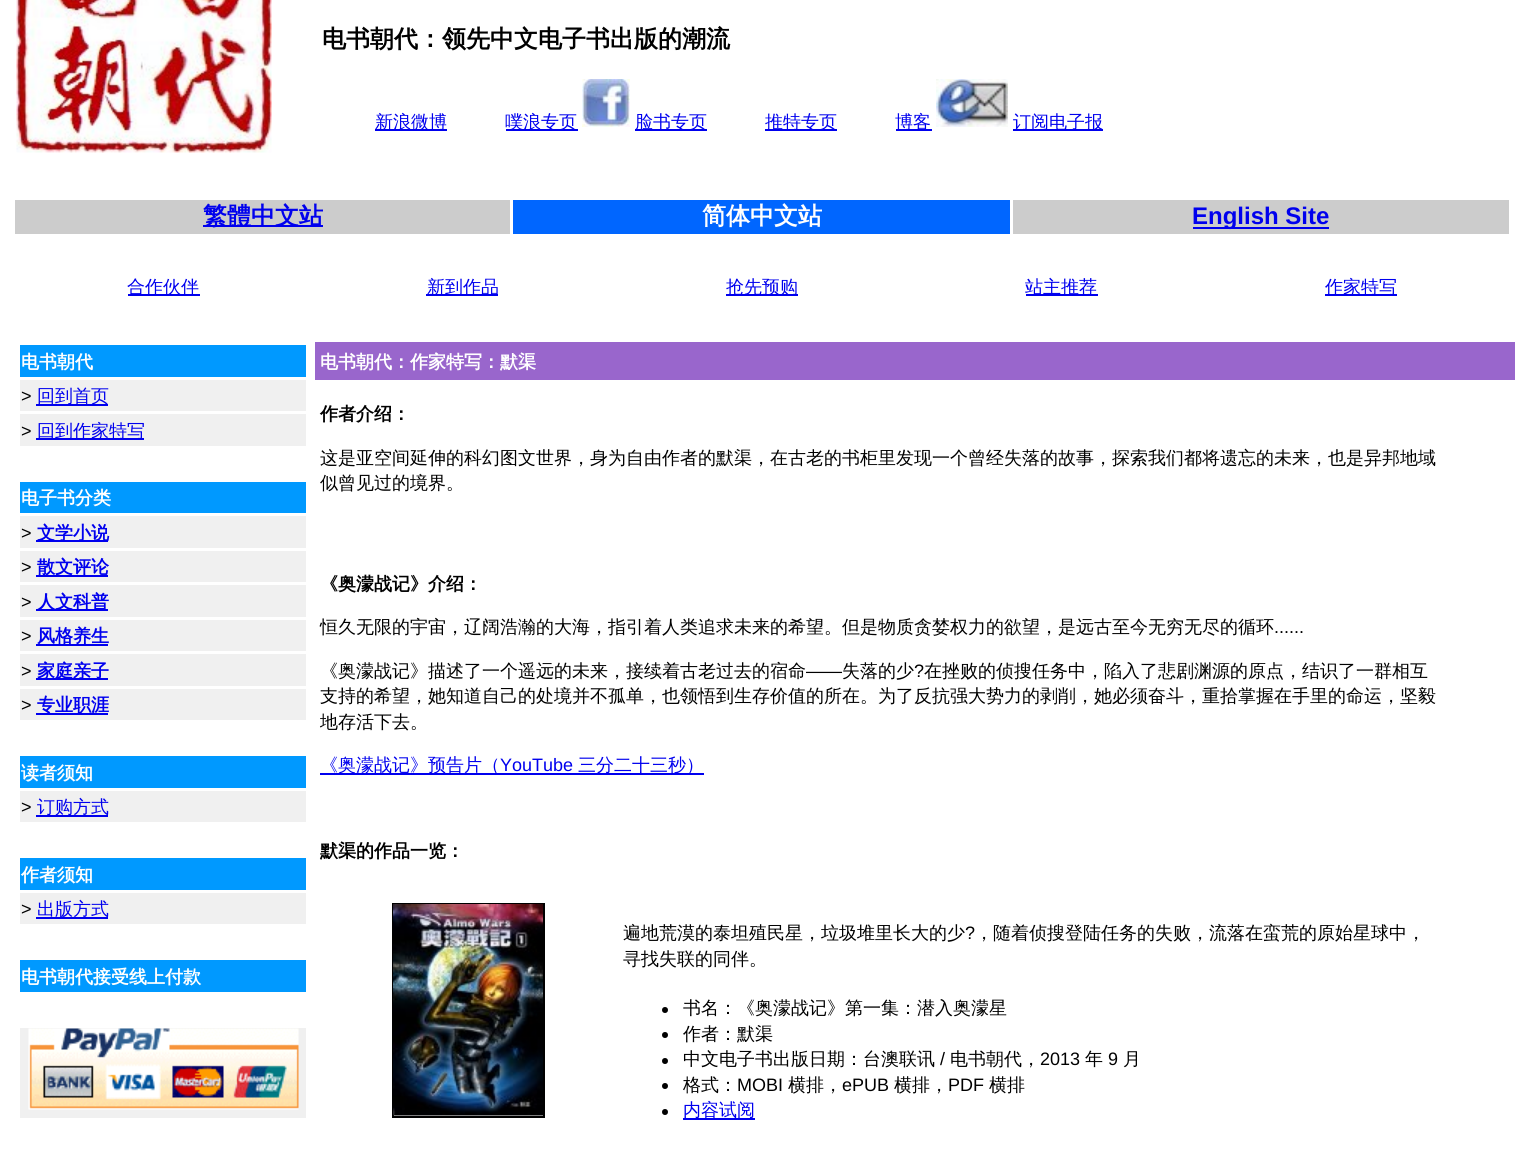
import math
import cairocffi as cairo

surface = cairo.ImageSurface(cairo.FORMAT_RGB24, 1523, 1163)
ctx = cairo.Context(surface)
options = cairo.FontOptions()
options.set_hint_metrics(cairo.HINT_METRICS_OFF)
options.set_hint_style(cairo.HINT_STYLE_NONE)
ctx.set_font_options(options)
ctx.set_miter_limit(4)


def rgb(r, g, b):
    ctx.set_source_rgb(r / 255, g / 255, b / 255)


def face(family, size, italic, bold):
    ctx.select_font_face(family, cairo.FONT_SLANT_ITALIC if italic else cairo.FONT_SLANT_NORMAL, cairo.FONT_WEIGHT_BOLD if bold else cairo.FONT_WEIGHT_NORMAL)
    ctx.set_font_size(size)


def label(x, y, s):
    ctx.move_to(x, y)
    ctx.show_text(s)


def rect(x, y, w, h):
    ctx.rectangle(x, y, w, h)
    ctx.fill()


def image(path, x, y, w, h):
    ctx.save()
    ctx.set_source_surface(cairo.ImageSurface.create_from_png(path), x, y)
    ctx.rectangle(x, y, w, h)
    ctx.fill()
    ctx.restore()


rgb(255, 255, 255)
ctx.paint()
image('image0.png', 16, 0, 256, 153)
face('WenQuanYi Zen Hei', 24, 0, 1)
rgb(0, 0, 0)
label(322, 47, '电书朝代：领先中文电子书出版的潮流')
rgb(0, 0, 238)
rect(375, 129, 72, 2)
face('WenQuanYi Zen Hei Medium', 18, 0, 0)
label(375, 128, '新浪微博')
rect(506, 129, 72, 2)
label(505, 128, '噗浪专页')
image('image1.png', 582, 79, 48, 48)
rect(635, 129, 72, 2)
label(635, 128, '脸书专页')
rect(765, 129, 72, 2)
label(765, 128, '推特专页')
rect(896, 129, 36, 2)
label(895, 128, '博客')
image('image2.png', 936, 79, 72, 48)
rect(1013, 129, 90, 2)
label(1013, 128, '订阅电子报')
rgb(204, 204, 204)
rect(15, 200, 495, 34)
rgb(0, 0, 238)
rect(203, 225, 120, 2)
face('WenQuanYi Zen Hei', 24, 0, 1)
label(203, 224, '繁體中文站')
rgb(0, 102, 255)
rect(513, 200, 497, 34)
rgb(255, 255, 255)
label(702, 224, '简体中文站')
rgb(204, 204, 204)
rect(1013, 200, 496, 34)
rgb(0, 0, 238)
rect(1193, 227, 136, 2)
face('Liberation Sans', 24, 0, 1)
label(1192, 224, 'English Site')
rect(128, 294, 72, 2)
face('WenQuanYi Zen Hei Medium', 18, 0, 0)
label(127, 293, '合作伙伴')
rect(426, 294, 72, 2)
label(427, 293, '新到作品')
rect(726, 294, 72, 2)
label(726, 293, '抢先预购')
rect(1026, 294, 72, 2)
label(1025, 293, '站主推荐')
rect(1325, 294, 72, 2)
label(1325, 293, '作家特写')
rgb(0, 153, 255)
rect(20, 345, 286, 32)
face('WenQuanYi Zen Hei', 18, 0, 1)
rgb(255, 255, 255)
label(21, 368, '电书朝代')
rgb(240, 240, 240)
rect(20, 380, 286, 31)
face('Liberation Sans', 18, 0, 0)
rgb(0, 0, 0)
label(21, 402, '>')
rgb(0, 0, 238)
rect(36, 404, 72, 2)
face('WenQuanYi Zen Hei Medium', 18, 0, 0)
label(37, 402, '回到首页')
rgb(240, 240, 240)
rect(20, 414, 286, 32)
face('Liberation Sans', 18, 0, 0)
rgb(0, 0, 0)
label(21, 437, '>')
rgb(0, 0, 238)
rect(36, 438, 108, 2)
face('WenQuanYi Zen Hei Medium', 18, 0, 0)
label(37, 437, '回到作家特写')
rgb(0, 153, 255)
rect(20, 482, 286, 31)
face('WenQuanYi Zen Hei', 18, 0, 1)
rgb(255, 255, 255)
label(21, 504, '电子书分类')
rgb(240, 240, 240)
rect(20, 516, 286, 32)
face('Liberation Sans', 18, 0, 0)
rgb(0, 0, 0)
label(21, 539, '>')
rgb(0, 0, 238)
rect(36, 540, 72, 2)
face('WenQuanYi Zen Hei', 18, 0, 1)
label(37, 539, '文学小说')
rgb(240, 240, 240)
rect(20, 551, 286, 31)
face('Liberation Sans', 18, 0, 0)
rgb(0, 0, 0)
label(21, 573, '>')
rgb(0, 0, 238)
rect(36, 575, 72, 2)
face('WenQuanYi Zen Hei', 18, 0, 1)
label(37, 573, '散文评论')
rgb(240, 240, 240)
rect(20, 585, 286, 32)
face('Liberation Sans', 18, 0, 0)
rgb(0, 0, 0)
label(21, 608, '>')
rgb(0, 0, 238)
rect(36, 609, 72, 2)
face('WenQuanYi Zen Hei', 18, 0, 1)
label(37, 608, '人文科普')
rgb(240, 240, 240)
rect(20, 620, 286, 31)
face('Liberation Sans', 18, 0, 0)
rgb(0, 0, 0)
label(21, 642, '>')
rgb(0, 0, 238)
rect(36, 644, 72, 2)
face('WenQuanYi Zen Hei', 18, 0, 1)
label(37, 642, '风格养生')
rgb(240, 240, 240)
rect(20, 654, 286, 32)
face('Liberation Sans', 18, 0, 0)
rgb(0, 0, 0)
label(21, 677, '>')
rgb(0, 0, 238)
rect(36, 678, 72, 2)
face('WenQuanYi Zen Hei', 18, 0, 1)
label(37, 677, '家庭亲子')
rgb(240, 240, 240)
rect(20, 689, 286, 31)
face('Liberation Sans', 18, 0, 0)
rgb(0, 0, 0)
label(21, 711, '>')
rgb(0, 0, 238)
rect(36, 713, 72, 2)
face('WenQuanYi Zen Hei', 18, 0, 1)
label(37, 711, '专业职涯')
rgb(0, 153, 255)
rect(20, 756, 286, 32)
rgb(255, 255, 255)
label(21, 779, '读者须知')
rgb(240, 240, 240)
rect(20, 791, 286, 31)
face('Liberation Sans', 18, 0, 0)
rgb(0, 0, 0)
label(21, 813, '>')
rgb(0, 0, 238)
rect(36, 815, 72, 2)
face('WenQuanYi Zen Hei Medium', 18, 0, 0)
label(37, 813, '订购方式')
rgb(0, 153, 255)
rect(20, 858, 286, 32)
face('WenQuanYi Zen Hei', 18, 0, 1)
rgb(255, 255, 255)
label(21, 881, '作者须知')
rgb(240, 240, 240)
rect(20, 893, 286, 31)
face('Liberation Sans', 18, 0, 0)
rgb(0, 0, 0)
label(21, 915, '>')
rgb(0, 0, 238)
rect(36, 917, 72, 2)
face('WenQuanYi Zen Hei Medium', 18, 0, 0)
label(37, 915, '出版方式')
rgb(0, 153, 255)
rect(20, 960, 286, 32)
face('WenQuanYi Zen Hei', 18, 0, 1)
rgb(255, 255, 255)
label(21, 983, '电书朝代接受线上付款')
rgb(240, 240, 240)
rect(20, 1028, 286, 90)
image('image3.png', 28, 1028, 271, 82)
rgb(153, 102, 204)
rect(315, 342, 1200, 38)
rgb(255, 255, 255)
label(320, 368, '电书朝代：作家特写：默渠')
rgb(0, 0, 0)
label(320, 420, '作者介绍：')
face('WenQuanYi Zen Hei Medium', 18, 0, 0)
label(320, 464, '这是亚空间延伸的科幻图文世界，身为自由作者的默渠，在古老的书柜里发现一个曾经失落的故事，探索我们都将遗忘的未来，也是异邦地域')
label(320, 489, '似曾见过的境界。')
face('WenQuanYi Zen Hei', 18, 0, 1)
label(320, 590, '《奥濛战记》介绍：')
face('WenQuanYi Zen Hei Medium', 18, 0, 0)
label(320, 633, '恒久无限的宇宙，辽阔浩瀚的大海，指引着人类追求未来的希望。但是物质贪婪权力的欲望，是远古至今无穷无尽的循环')
face('Liberation Sans', 18, 0, 0)
label(1274, 633, '......')
face('WenQuanYi Zen Hei Medium', 18, 0, 0)
label(320, 677, '《奥濛战记》描述了一个遥远的未来，接续着古老过去的宿命')
face('Liberation Sans', 18, 0, 0)
label(806, 677, '——')
face('WenQuanYi Zen Hei Medium', 18, 0, 0)
label(842, 677, '失落的少')
face('Liberation Sans', 18, 0, 0)
label(914, 677, '?')
face('WenQuanYi Zen Hei Medium', 18, 0, 0)
label(924, 677, '在挫败的侦搜任务中，陷入了悲剧渊源的原点，结识了一群相互')
label(320, 702, '支持的希望，她知道自己的处境并不孤单，也领悟到生存价值的所在。为了反抗强大势力的剥削，她必须奋斗，重拾掌握在手里的命运，坚毅')
label(320, 728, '地存活下去。')
rgb(0, 0, 238)
rect(320, 773, 384, 2)
label(320, 771, '《奥濛战记》预告片（')
face('Liberation Sans', 18, 0, 0)
label(500, 771, 'YouTube')
face('WenQuanYi Zen Hei Medium', 18, 0, 0)
label(578, 771, '三分二十三秒）')
face('WenQuanYi Zen Hei', 18, 0, 1)
rgb(0, 0, 0)
label(320, 857, '默渠的作品一览：')
ctx.rectangle(393, 904, 151, 213)
ctx.stroke()
image('image4.png', 393, 904, 150, 212)
face('WenQuanYi Zen Hei Medium', 18, 0, 0)
label(623, 939, '遍地荒漠的泰坦殖民星，垃圾堆里长大的少')
face('Liberation Sans', 18, 0, 0)
label(965, 939, '?')
face('WenQuanYi Zen Hei Medium', 18, 0, 0)
label(975, 939, '，随着侦搜登陆任务的失败，流落在蛮荒的原始星球中，')
label(623, 965, '寻找失联的同伴。')
ctx.new_path()
ctx.arc(665, 1010, 3, 0, 2 * math.pi)
ctx.fill()
label(683, 1014, '书名：《奥濛战记》第一集：潜入奥濛星')
ctx.new_path()
ctx.arc(665, 1035, 3, 0, 2 * math.pi)
ctx.fill()
label(683, 1040, '作者：默渠')
ctx.new_path()
ctx.arc(665, 1061, 3, 0, 2 * math.pi)
ctx.fill()
label(683, 1065, '中文电子书出版日期：台澳联讯')
face('Liberation Sans', 18, 0, 0)
label(940, 1065, '/')
face('WenQuanYi Zen Hei Medium', 18, 0, 0)
label(950, 1065, '电书朝代，')
face('Liberation Sans', 18, 0, 0)
label(1040, 1065, '2013')
face('WenQuanYi Zen Hei Medium', 18, 0, 0)
label(1085, 1065, '年')
face('Liberation Sans', 18, 0, 0)
label(1108, 1065, '9')
face('WenQuanYi Zen Hei Medium', 18, 0, 0)
label(1123, 1065, '月')
ctx.new_path()
ctx.arc(665, 1086, 3, 0, 2 * math.pi)
ctx.fill()
label(683, 1091, '格式：')
face('Liberation Sans', 18, 0, 0)
label(737, 1091, 'MOBI')
face('WenQuanYi Zen Hei Medium', 18, 0, 0)
label(788, 1091, '横排，')
face('Liberation Sans', 18, 0, 0)
label(842, 1091, 'ePUB')
face('WenQuanYi Zen Hei Medium', 18, 0, 0)
label(894, 1091, '横排，')
face('Liberation Sans', 18, 0, 0)
label(948, 1091, 'PDF')
face('WenQuanYi Zen Hei Medium', 18, 0, 0)
label(989, 1091, '横排')
ctx.new_path()
ctx.arc(665, 1112, 3, 0, 2 * math.pi)
ctx.fill()
rgb(0, 0, 238)
rect(683, 1118, 72, 2)
label(683, 1116, '内容试阅')
surface.write_to_png('render.png')
